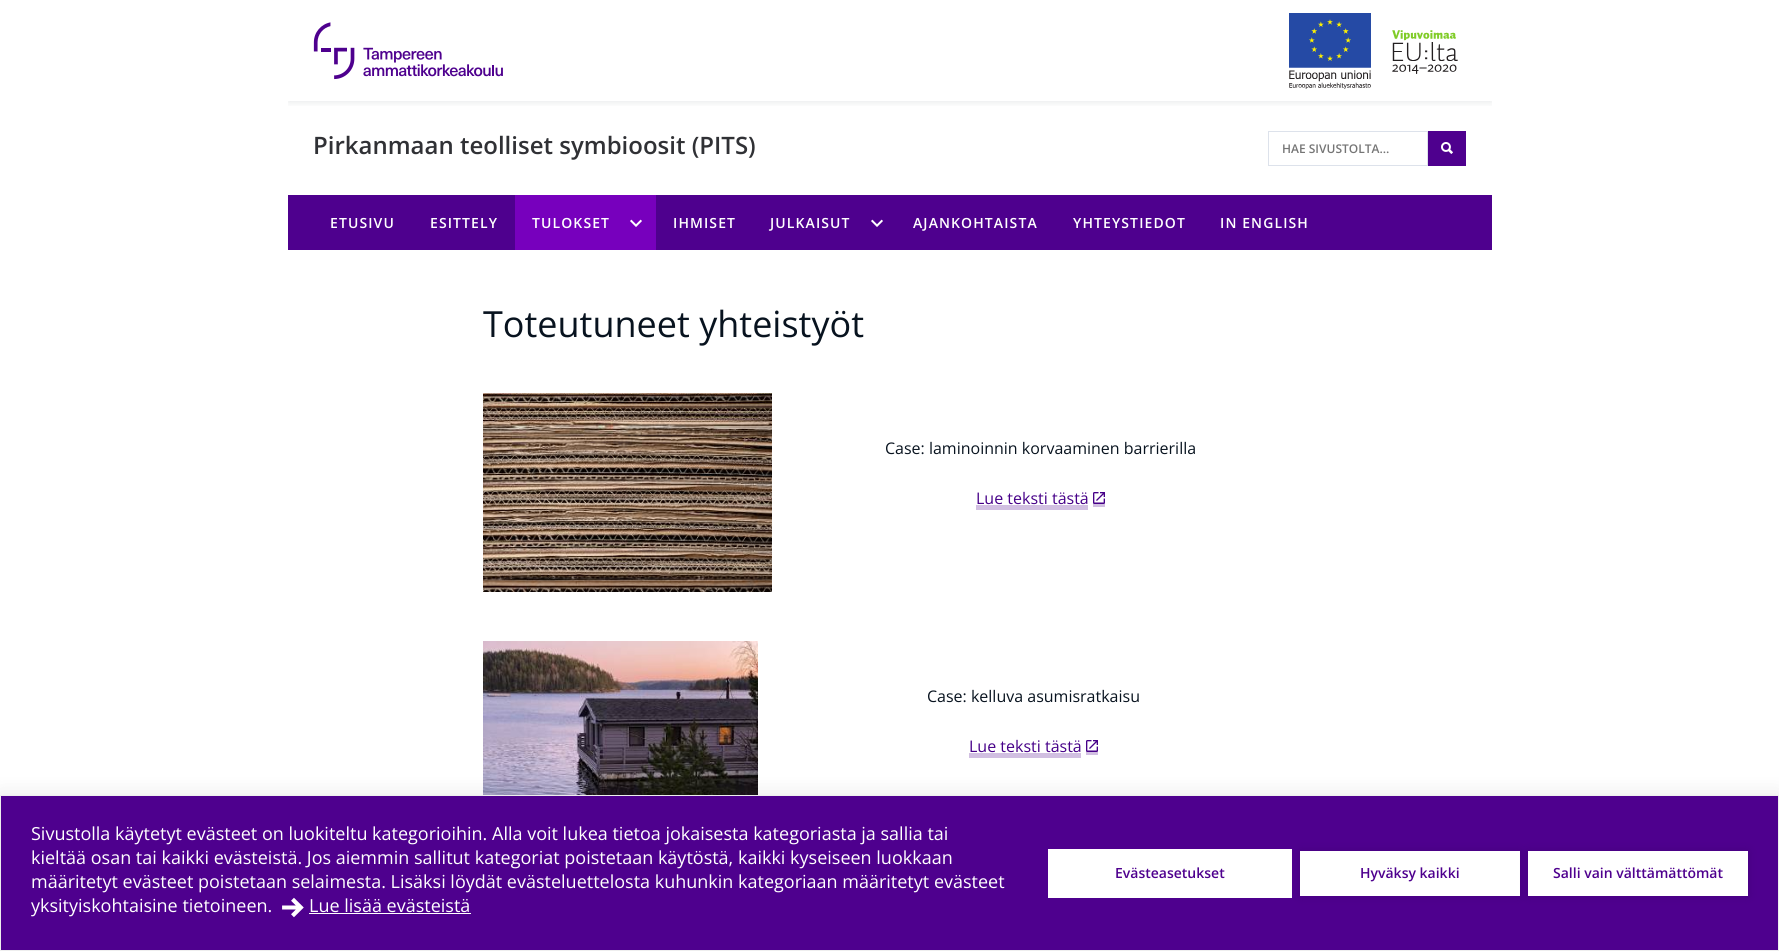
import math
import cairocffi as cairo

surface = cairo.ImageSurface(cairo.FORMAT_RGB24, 1779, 951)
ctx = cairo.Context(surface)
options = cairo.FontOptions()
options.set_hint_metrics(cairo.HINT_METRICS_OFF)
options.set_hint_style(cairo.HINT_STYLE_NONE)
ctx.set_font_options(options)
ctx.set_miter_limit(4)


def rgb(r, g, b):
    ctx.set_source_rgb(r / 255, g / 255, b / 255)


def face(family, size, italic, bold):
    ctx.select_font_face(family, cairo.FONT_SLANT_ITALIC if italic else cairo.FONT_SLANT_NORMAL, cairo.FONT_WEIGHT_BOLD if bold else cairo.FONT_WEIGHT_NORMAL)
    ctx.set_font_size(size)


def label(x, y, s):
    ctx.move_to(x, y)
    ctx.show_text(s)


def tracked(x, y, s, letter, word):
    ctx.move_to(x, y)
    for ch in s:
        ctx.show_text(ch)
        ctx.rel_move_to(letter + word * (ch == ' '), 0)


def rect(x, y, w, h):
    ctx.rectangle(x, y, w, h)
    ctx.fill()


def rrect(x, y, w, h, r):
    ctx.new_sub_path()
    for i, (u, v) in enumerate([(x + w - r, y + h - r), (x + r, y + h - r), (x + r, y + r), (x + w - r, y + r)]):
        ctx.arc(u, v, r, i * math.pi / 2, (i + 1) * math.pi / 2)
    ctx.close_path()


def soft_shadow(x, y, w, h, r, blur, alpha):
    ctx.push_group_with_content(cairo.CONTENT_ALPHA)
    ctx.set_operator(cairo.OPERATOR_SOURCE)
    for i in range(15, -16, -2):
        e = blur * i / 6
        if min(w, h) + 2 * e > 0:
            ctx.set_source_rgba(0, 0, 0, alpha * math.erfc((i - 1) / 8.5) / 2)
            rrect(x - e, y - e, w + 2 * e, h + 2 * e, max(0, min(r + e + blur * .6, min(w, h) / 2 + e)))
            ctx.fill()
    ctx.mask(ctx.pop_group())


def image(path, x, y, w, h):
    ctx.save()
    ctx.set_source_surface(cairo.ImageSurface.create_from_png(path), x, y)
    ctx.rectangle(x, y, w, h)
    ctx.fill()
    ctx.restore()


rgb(255, 255, 255)
ctx.paint()
ctx.save()
ctx.rectangle(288, 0, 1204, 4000)
ctx.clip()
ctx.rectangle(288, 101, 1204, 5)
ctx.clip()
rgb(8, 19, 31)
soft_shadow(288, 0, 1204, 101, 0, 5, 0.12)
ctx.restore()
image('image0.png', 313, 22, 190, 58)
image('image1.png', 1289, 13, 82, 76)
image('image2.png', 1392, 30, 66, 44)
face('Open Sans SemiBold', 24, 0, 0)
rgb(48, 49, 53)
label(313, 154, 'Pirkanmaan teolliset symbioosit (PITS)')
ctx.rectangle(1268.5, 131.5, 159, 34)
rgb(221, 226, 235)
ctx.set_line_width(1)
ctx.stroke()
face('Open Sans SemiBold', 12, 0, 0)
rgb(117, 117, 117)
label(1282, 153, 'HAE SIVUSTOLTA…')
rgb(78, 0, 142)
rect(1428, 131, 38, 35)
image('image3.png', 1441, 142, 12, 12)
rect(288, 195, 1204, 55)
face('Open Sans SemiBold', 14, 0, 0)
rgb(255, 255, 255)
tracked(330, 228, 'ETUSIVU', 1.1, 0)
tracked(430, 228, 'ESITTELY', 1.1, 0)
rgb(119, 0, 189)
rect(515, 195, 141, 55)
rgb(255, 255, 255)
tracked(532, 228, 'TULOKSET', 1.1, 0)
image('image4.png', 630, 219, 12, 8)
tracked(673, 228, 'IHMISET', 1.1, 0)
tracked(770, 228, 'JULKAISUT', 1.1, 0)
image('image5.png', 871, 219, 12, 8)
tracked(913, 228, 'AJANKOHTAISTA', 1.1, 0)
tracked(1073, 228, 'YHTEYSTIEDOT', 1.1, 0)
tracked(1220, 228, 'IN ENGLISH', 1.1, 0)
face('Open Sans', 36, 0, 0)
rgb(8, 19, 31)
label(483, 337, 'Toteutuneet yhteistyöt')
image('image6.png', 483, 393, 289, 199)
face('Open Sans', 16, 0, 0)
label(885, 454, 'Case: laminoinnin korvaaminen barrierilla')
rgb(209, 191, 225)
rect(976, 505, 112, 5)
rect(1093, 502, 12, 5)
rgb(70, 0, 136)
label(976, 504, 'Lue teksti tästä')
image('image7.png', 1093, 492, 12, 12)
image('image8.png', 483, 641, 275, 154)
rgb(8, 19, 31)
label(927, 702, 'Case: kelluva asumisratkaisu')
rgb(209, 191, 225)
rect(969, 753, 112, 5)
rect(1086, 750, 12, 5)
rgb(70, 0, 136)
label(969, 752, 'Lue teksti tästä')
image('image7.png', 1086, 740, 12, 12)
rgb(0, 0, 0)
soft_shadow(0, 795, 1779, 156, 0, 10, 0.1)
rgb(78, 0, 142)
ctx.rectangle(0.5, 795.5, 1778, 155)
ctx.fill_preserve()
rgb(238, 238, 238)
ctx.stroke()
face('Open Sans', 18, 0, 0)
rgb(255, 255, 255)
label(31, 840, 'Sivustolla käytetyt evästeet on luokiteltu kategorioihin. Alla voit lukea tietoa jokaisesta kategoriasta ja sallia tai')
label(31, 864, 'kieltää osan tai kaikki evästeistä. Jos aiemmin sallitut kategoriat poistetaan käytöstä, kaikki kyseiseen luokkaan')
label(31, 888, 'määritetyt evästeet poistetaan selaimesta. Lisäksi löydät evästeluettelosta kuhunkin kategoriaan määritetyt evästeet')
label(31, 912, 'yksityiskohtaisine tietoineen.')
image('image9.png', 282, 897, 22, 21)
label(309, 912, 'Lue lisää evästeistä')
rect(309, 913, 162, 1)
rect(1048, 849, 244, 49)
face('Open Sans SemiBold', 14, 0, 0)
rgb(78, 0, 142)
label(1115, 878, 'Evästeasetukset')
rgb(0, 0, 0)
soft_shadow(1300, 851, 220, 45, 0, 5, 0.12)
rgb(255, 255, 255)
rect(1300, 851, 220, 45)
rgb(78, 0, 142)
label(1360, 878, 'Hyväksy kaikki')
rgb(0, 0, 0)
soft_shadow(1528, 851, 220, 45, 0, 5, 0.12)
rgb(255, 255, 255)
rect(1528, 851, 220, 45)
rgb(78, 0, 142)
label(1553, 878, 'Salli vain välttämättömät')
surface.write_to_png('render.png')
